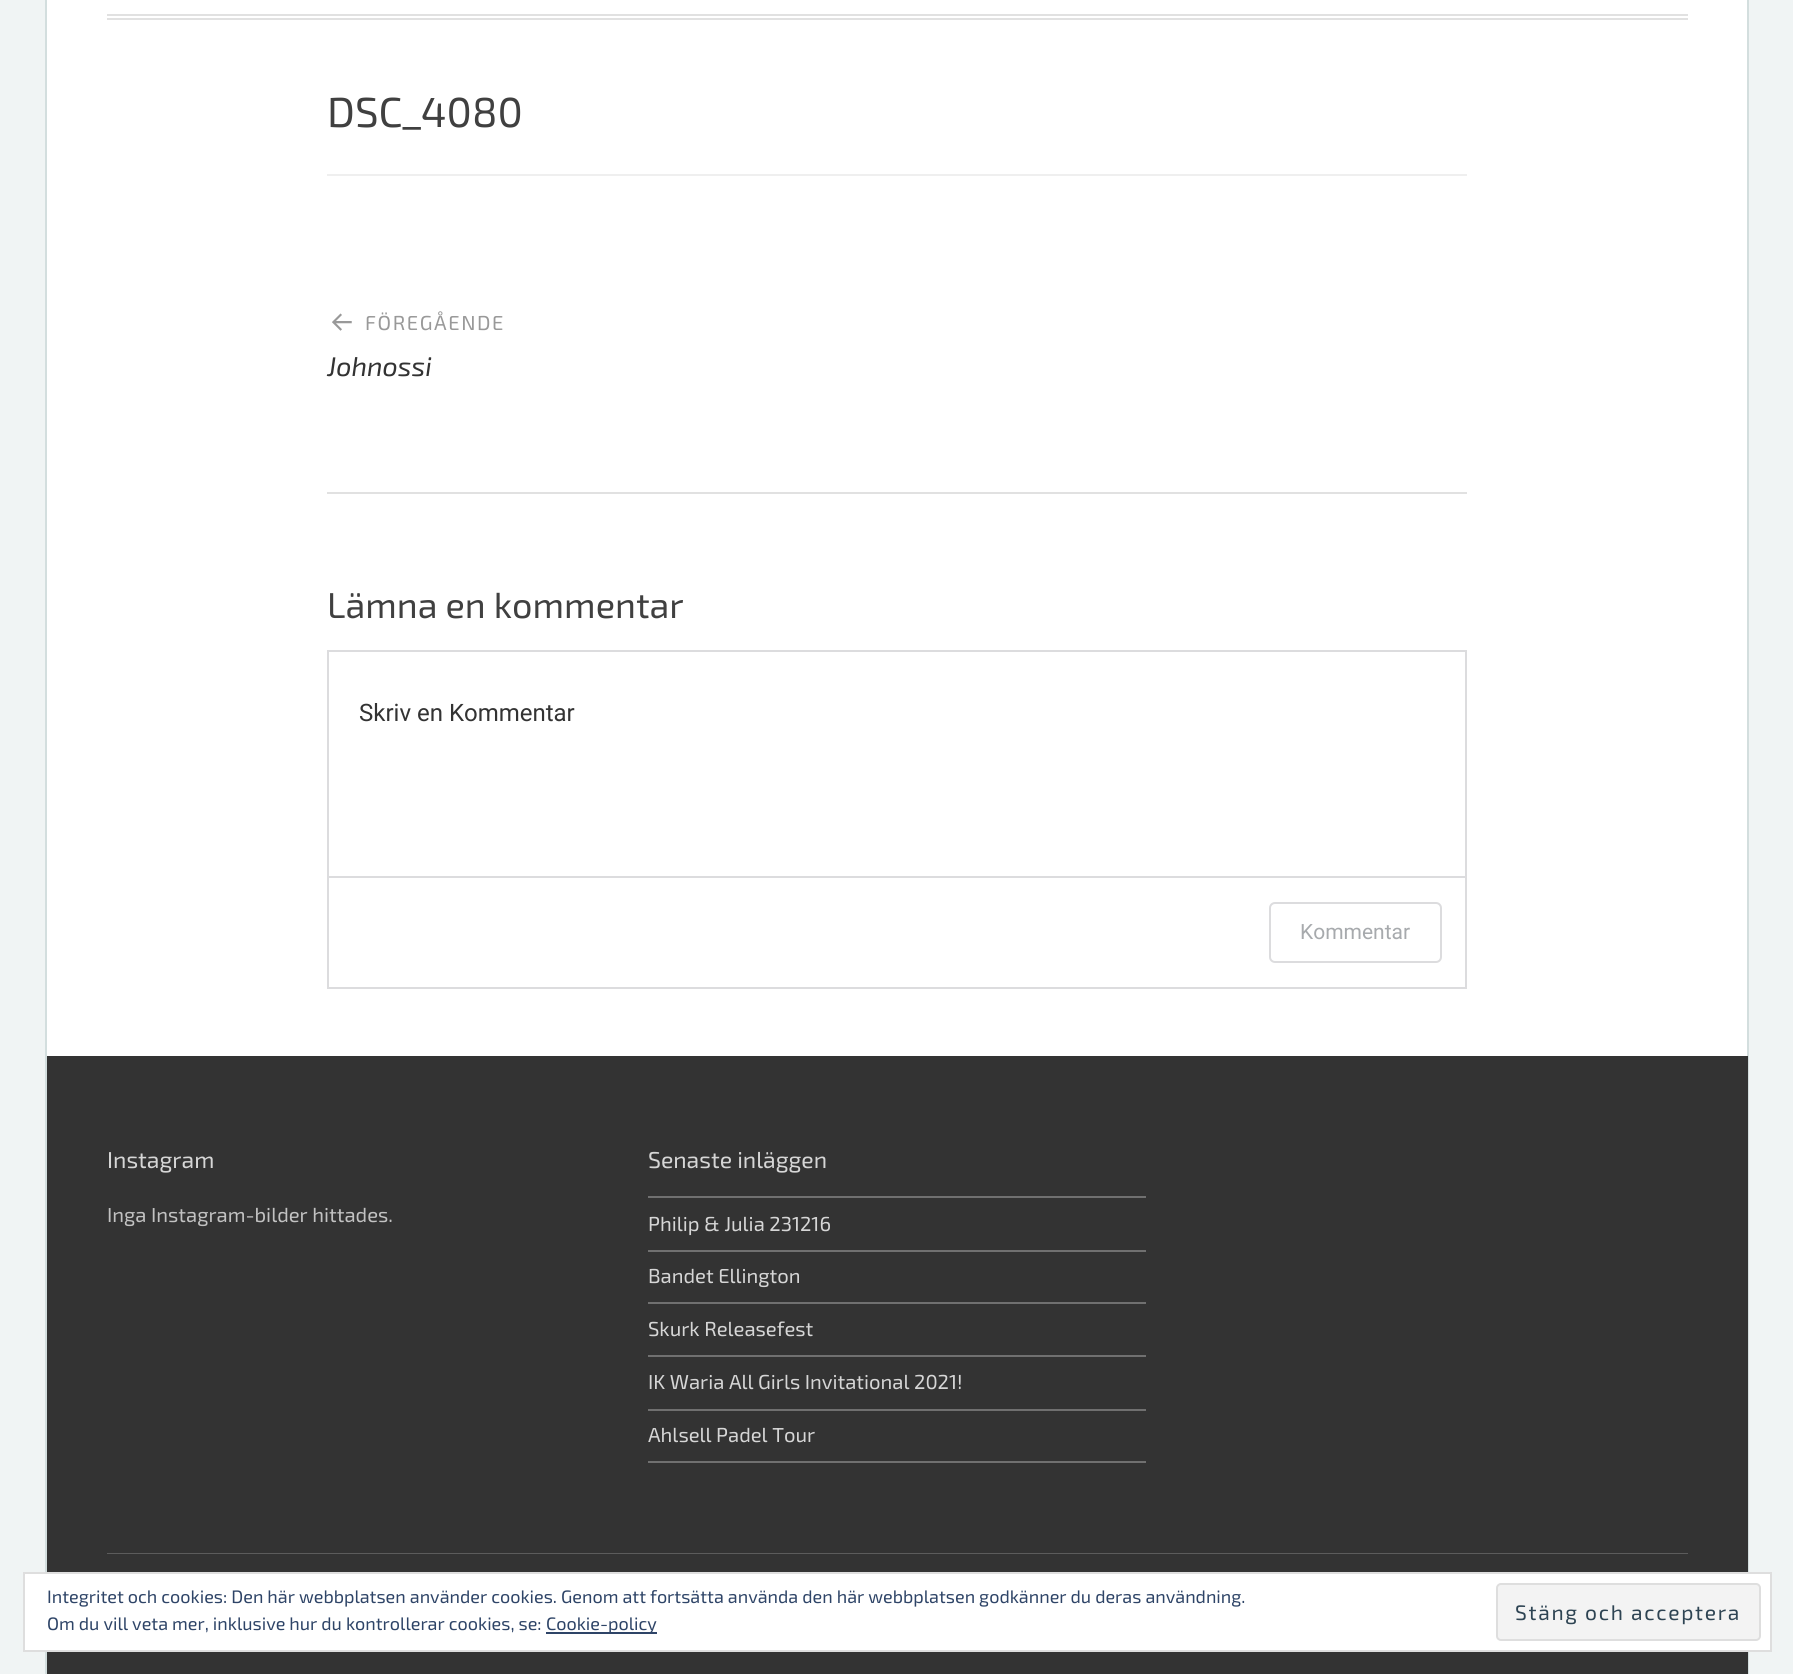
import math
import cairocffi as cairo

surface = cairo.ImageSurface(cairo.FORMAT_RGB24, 1793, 1674)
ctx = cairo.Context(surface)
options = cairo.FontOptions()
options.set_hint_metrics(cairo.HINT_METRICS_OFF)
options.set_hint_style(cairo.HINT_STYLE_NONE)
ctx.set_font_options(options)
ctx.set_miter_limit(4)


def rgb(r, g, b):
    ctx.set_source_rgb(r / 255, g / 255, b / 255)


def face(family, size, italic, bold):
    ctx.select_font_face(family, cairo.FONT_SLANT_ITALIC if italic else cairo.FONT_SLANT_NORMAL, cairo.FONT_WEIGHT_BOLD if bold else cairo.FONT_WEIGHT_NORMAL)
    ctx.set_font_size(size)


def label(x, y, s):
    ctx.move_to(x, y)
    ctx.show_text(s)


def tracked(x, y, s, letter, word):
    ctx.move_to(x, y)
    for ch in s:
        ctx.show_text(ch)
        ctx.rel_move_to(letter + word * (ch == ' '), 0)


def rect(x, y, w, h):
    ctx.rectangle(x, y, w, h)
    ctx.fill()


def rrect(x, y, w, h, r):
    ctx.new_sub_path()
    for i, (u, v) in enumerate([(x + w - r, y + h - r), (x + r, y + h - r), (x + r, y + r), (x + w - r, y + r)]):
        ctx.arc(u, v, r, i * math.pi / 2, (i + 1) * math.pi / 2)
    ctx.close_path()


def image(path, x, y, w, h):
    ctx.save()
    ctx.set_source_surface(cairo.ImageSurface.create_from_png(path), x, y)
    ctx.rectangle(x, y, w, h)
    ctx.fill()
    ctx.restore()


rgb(240, 244, 244)
ctx.paint()
rgb(255, 255, 255)
rect(47, 0, 1700, 1056)
ctx.rectangle(46, -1, 1702, 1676)
rgb(211, 222, 222)
ctx.stroke()
rgb(225, 225, 225)
rect(107, 14, 1581, 2)
rect(107, 18, 1581, 2)
face('Exo 2', 42, 0, 0)
rgb(64, 64, 64)
label(327, 127, 'DSC_4080')
rgb(239, 239, 239)
rect(327, 174, 1140, 2)
image('image0.png', 332, 313, 20, 18)
face('Exo 2', 20.25, 0, 0)
rgb(153, 153, 153)
tracked(365, 330, 'FÖREGÅENDE', 1.6, 0)
face('Exo 2', 27, 1, 0)
rgb(51, 51, 51)
label(327, 376, 'Johnossi')
rgb(225, 225, 225)
rect(327, 492, 1140, 2)
face('Exo 2', 36, 0, 0)
rgb(64, 64, 64)
label(327, 618, 'Lämna en kommentar')
ctx.rectangle(328, 651, 1138, 337)
rgb(220, 220, 222)
ctx.stroke()
face('Roboto', 24, 0, 0)
rgb(51, 51, 51)
label(359, 721, 'Skriv en Kommentar')
rgb(220, 220, 222)
rect(329, 876, 1137, 2)
rrect(1270, 903, 171, 59, 5)
ctx.stroke()
face('Roboto', 21, 0, 0)
rgb(167, 170, 173)
label(1300, 939, 'Kommentar')
rgb(51, 51, 51)
rect(47, 1056, 1701, 618)
rgb(92, 92, 92)
rect(107, 1553, 1581, 1)
face('Exo 2', 23, 0, 0)
rgb(214, 214, 214)
label(107, 1168, 'Instagram')
face('Exo 2', 20.25, 0, 0)
rgb(194, 194, 194)
label(107, 1222, 'Inga Instagram-bilder hittades.')
face('Exo 2', 23, 0, 0)
rgb(214, 214, 214)
label(648, 1168, 'Senaste inläggen')
rgb(112, 112, 112)
rect(648, 1461, 498, 2)
rect(648, 1196, 498, 2)
face('Exo 2', 20.25, 0, 0)
rgb(214, 214, 214)
label(648, 1231, 'Philip & Julia 231216')
rgb(112, 112, 112)
rect(648, 1250, 498, 2)
rgb(214, 214, 214)
label(648, 1283, 'Bandet Ellington')
rgb(112, 112, 112)
rect(648, 1302, 498, 2)
rgb(214, 214, 214)
label(648, 1336, 'Skurk Releasefest')
rgb(112, 112, 112)
rect(648, 1355, 498, 2)
rgb(214, 214, 214)
label(648, 1389, 'IK Waria All Girls Invitational 2021!')
rgb(112, 112, 112)
rect(648, 1409, 498, 2)
rgb(214, 214, 214)
label(648, 1442, 'Ahlsell Padel Tour')
rgb(255, 255, 255)
ctx.rectangle(24, 1573, 1747, 78)
ctx.fill_preserve()
rgb(222, 222, 222)
ctx.stroke()
face('Exo 2', 18, 0, 0)
rgb(46, 68, 103)
label(47, 1603, 'Integritet och cookies: Den här webbplatsen använder cookies. Genom att fortsätta använda den här webbplatsen godkänner du deras användning.')
label(47, 1630, 'Om du vill veta mer, inklusive hur du kontrollerar cookies, se:')
rect(546, 1632, 111, 2)
label(546, 1630, 'Cookie-policy')
rgb(243, 243, 243)
rrect(1497, 1584, 263, 56, 4)
ctx.fill_preserve()
rgb(222, 222, 222)
ctx.stroke()
face('Exo 2', 21, 0, 0)
rgb(46, 68, 83)
tracked(1515, 1620, 'Stäng och acceptera', 1.7, 0)
surface.write_to_png('render.png')
